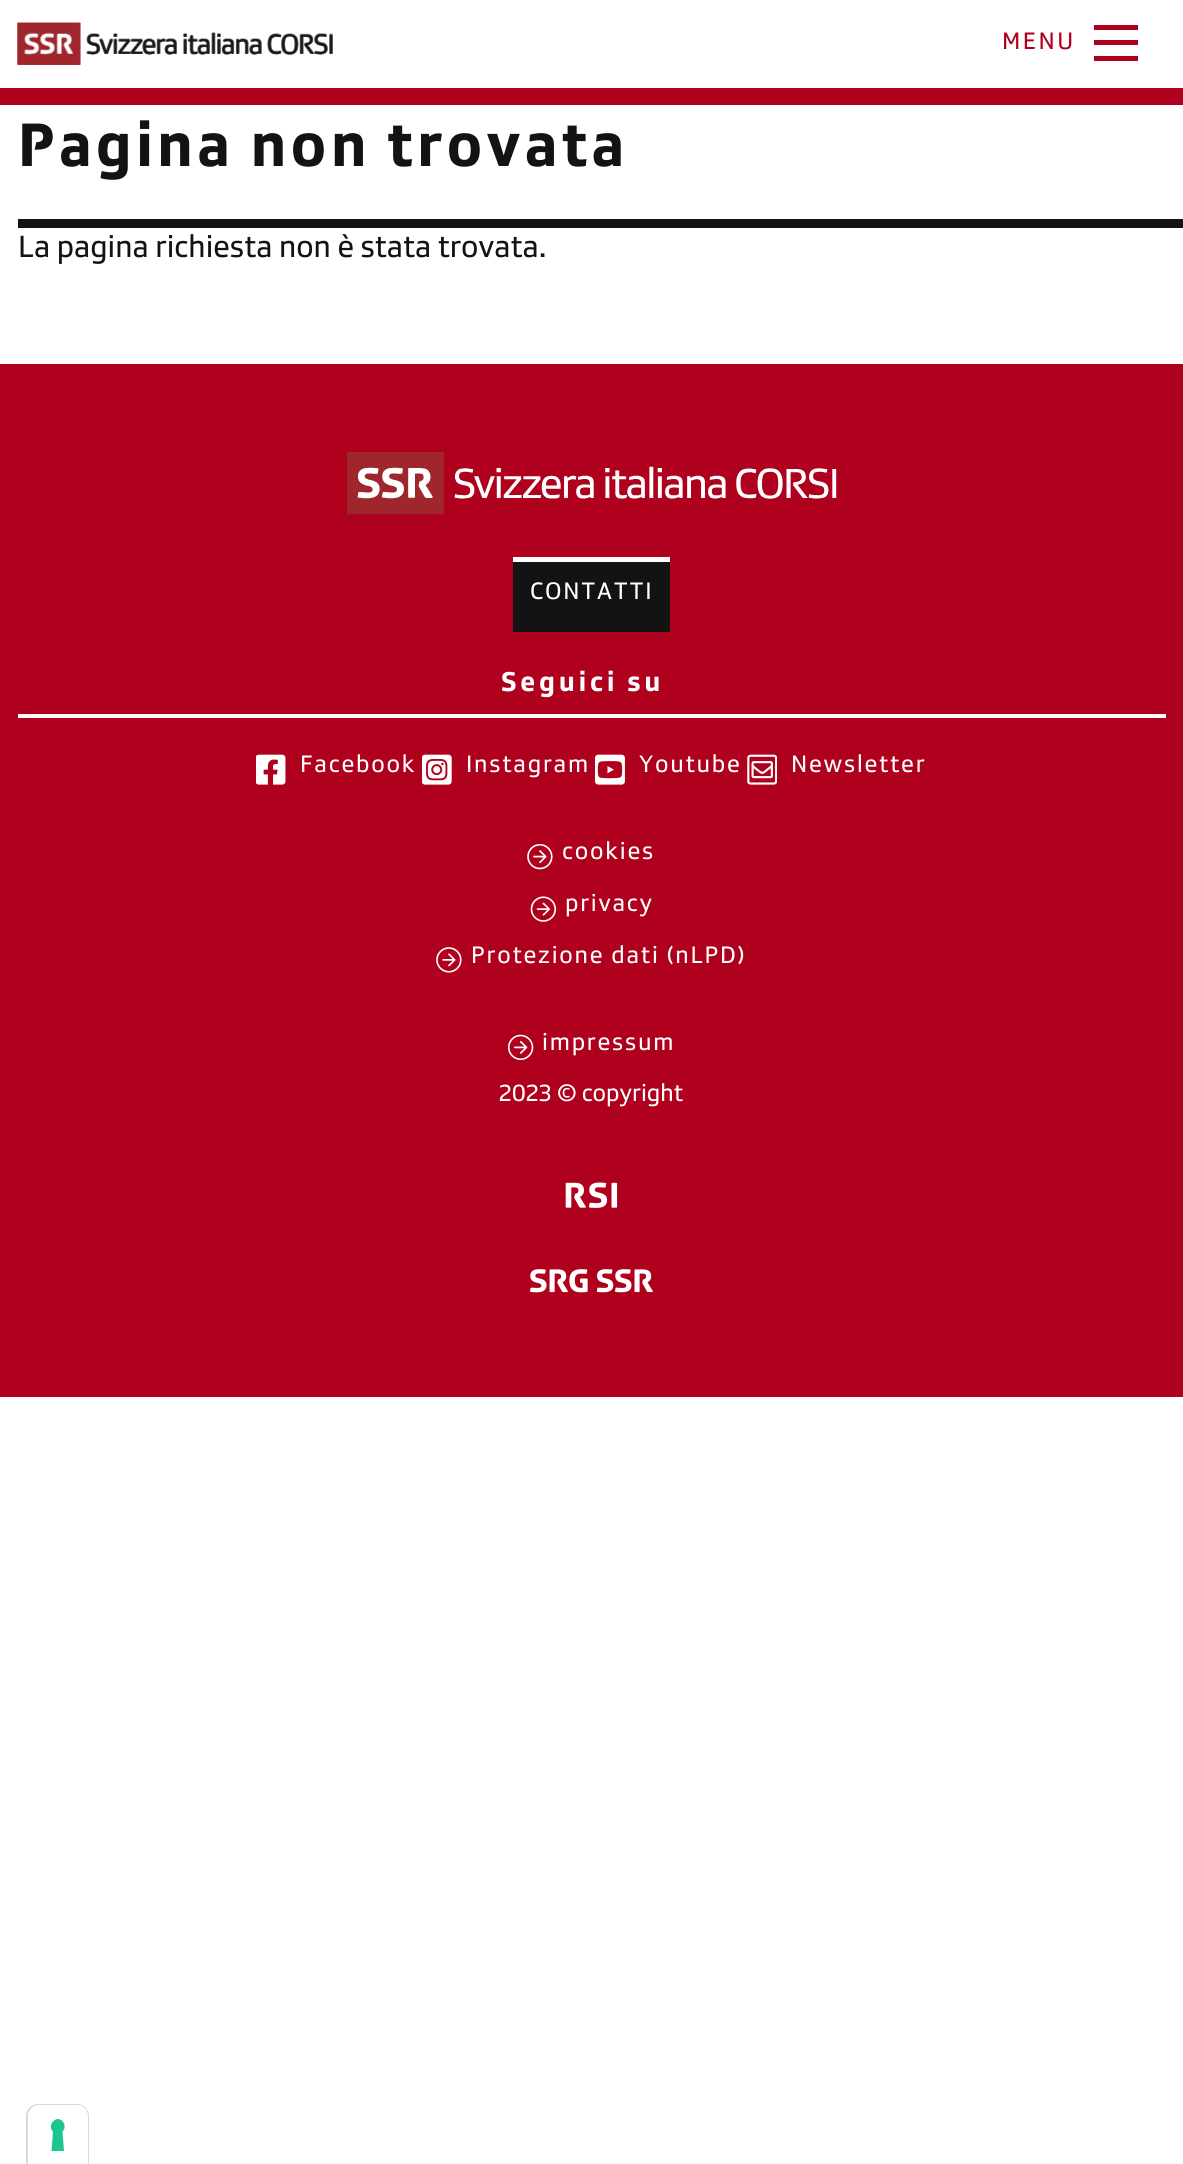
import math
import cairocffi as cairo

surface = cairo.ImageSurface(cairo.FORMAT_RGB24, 1183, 2164)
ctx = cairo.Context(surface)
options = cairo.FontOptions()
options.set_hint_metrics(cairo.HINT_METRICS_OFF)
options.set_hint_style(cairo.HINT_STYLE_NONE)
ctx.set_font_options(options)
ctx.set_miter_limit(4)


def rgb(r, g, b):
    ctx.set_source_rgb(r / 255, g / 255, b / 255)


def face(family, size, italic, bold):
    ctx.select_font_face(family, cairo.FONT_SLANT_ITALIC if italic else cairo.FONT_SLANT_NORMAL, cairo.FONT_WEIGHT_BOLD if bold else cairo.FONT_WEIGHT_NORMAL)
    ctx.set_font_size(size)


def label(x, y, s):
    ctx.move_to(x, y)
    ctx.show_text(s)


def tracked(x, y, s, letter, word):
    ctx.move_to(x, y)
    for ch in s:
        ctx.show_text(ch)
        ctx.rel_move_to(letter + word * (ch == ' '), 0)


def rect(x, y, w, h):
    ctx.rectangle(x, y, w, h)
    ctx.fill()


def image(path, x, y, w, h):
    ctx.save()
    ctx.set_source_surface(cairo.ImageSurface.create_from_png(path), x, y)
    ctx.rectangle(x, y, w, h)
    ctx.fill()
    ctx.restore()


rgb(255, 255, 255)
ctx.paint()
face('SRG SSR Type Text', 24.5, 0, 0)
rgb(175, 0, 30)
tracked(1002, 49, 'MENU', 2.5, 0)
rect(1094, 25, 44, 5)
rect(1094, 40, 44, 5)
rect(1094, 56, 44, 5)
rect(0, 88, 1183, 17)
image('image0.png', 17, 22, 316, 43)
image('image1.png', 17, 22, 316, 43)
face('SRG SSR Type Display', 63, 0, 1)
rgb(19, 19, 19)
tracked(18, 166, 'Pagina non trovata', 3.5, 0)
rect(18, 219, 1165, 9)
face('SRG SSR Type Text', 31.5, 0, 0)
label(18, 257, 'La pagina richiesta non è stata trovata.')
rgb(175, 0, 30)
rect(0, 364, 1183, 1033)
image('image2.png', 347, 452, 490, 63)
rgb(19, 19, 19)
rect(513, 562, 157, 70)
rgb(255, 255, 255)
rect(513, 557, 157, 5)
face('SRG SSR Type Text', 24.5, 0, 0)
tracked(530, 599, 'CONTATTI', 1.75, 0)
rect(18, 714, 1148, 4)
face('SRG SSR Type Text', 28, 0, 1)
tracked(501, 691, 'Seguici su', 3.5, 0)
image('image3.png', 256, 754, 30, 31)
face('SRG SSR Type Text', 24.5, 0, 0)
tracked(300, 772, 'Facebook', 1.75, 0)
image('image4.png', 422, 754, 30, 31)
tracked(466, 772, 'Instagram', 1.75, 0)
image('image5.png', 595, 754, 30, 31)
tracked(639, 772, 'Youtube', 1.75, 0)
image('image6.png', 747, 754, 30, 31)
tracked(791, 772, 'Newsletter', 1.75, 0)
image('image7.png', 527, 844, 26, 26)
tracked(562, 859, 'cookies', 1.75, 0)
image('image8.png', 530, 896, 27, 26)
tracked(565, 911, 'privacy', 1.75, 0)
image('image9.png', 436, 947, 26, 26)
tracked(471, 963, 'Protezione dati (nLPD)', 1.75, 0)
image('image10.png', 508, 1034, 26, 27)
tracked(542, 1050, 'impressum', 1.75, 0)
label(499, 1101, '2023 © copyright')
image('image11.png', 565, 1182, 53, 26)
image('image12.png', 530, 1269, 123, 24)
ctx.new_path()
ctx.move_to(38, 2105)
ctx.line_to(77, 2105)
ctx.curve_to(83, 2105, 88, 2110, 88, 2116)
ctx.line_to(88, 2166)
ctx.line_to(27, 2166)
ctx.line_to(27, 2116)
ctx.curve_to(27, 2110, 32, 2105, 38, 2105)
ctx.close_path()
rgb(217, 217, 217)
ctx.stroke()
rgb(255, 255, 255)
ctx.new_path()
ctx.move_to(39, 2105)
ctx.line_to(77, 2105)
ctx.curve_to(83, 2105, 88, 2110, 88, 2116)
ctx.line_to(88, 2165)
ctx.line_to(28, 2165)
ctx.line_to(28, 2116)
ctx.curve_to(28, 2110, 33, 2105, 39, 2105)
ctx.close_path()
ctx.fill()
rgb(28, 198, 145)
ctx.set_fill_rule(cairo.FILL_RULE_EVEN_ODD)
ctx.new_path()
ctx.move_to(58, 2119)
ctx.curve_to(64, 2119.5, 67, 2127.5, 62.5, 2131.5)
ctx.line_to(64, 2151)
ctx.line_to(51.5, 2151)
ctx.line_to(53, 2131.5)
ctx.curve_to(48.5, 2127.5, 51.5, 2119.5, 58, 2119)
ctx.close_path()
ctx.fill()
surface.write_to_png('render.png')
